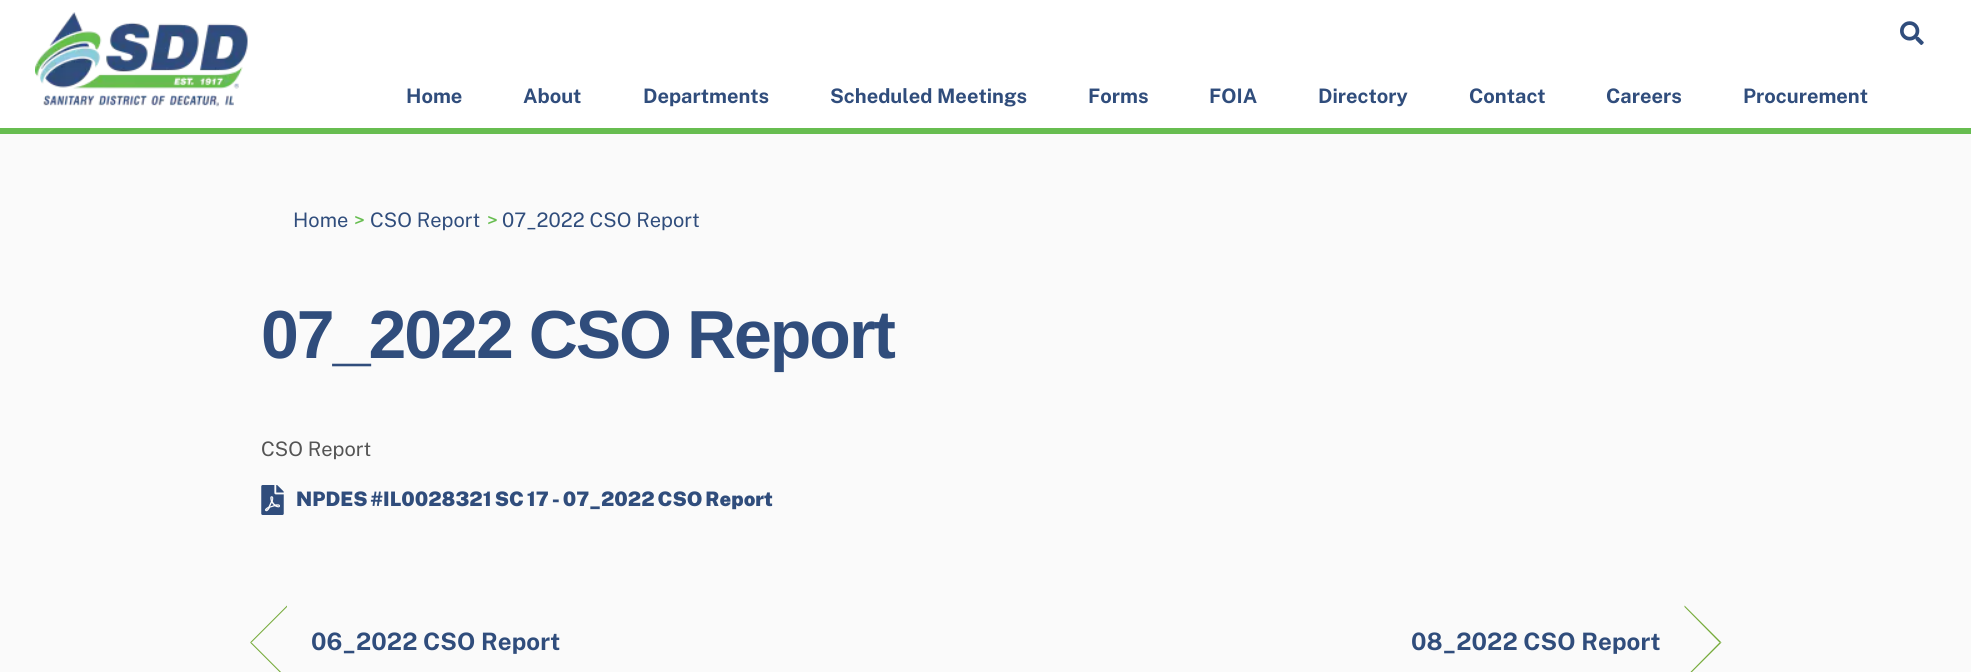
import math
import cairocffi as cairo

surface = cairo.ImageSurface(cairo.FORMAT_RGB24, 1971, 672)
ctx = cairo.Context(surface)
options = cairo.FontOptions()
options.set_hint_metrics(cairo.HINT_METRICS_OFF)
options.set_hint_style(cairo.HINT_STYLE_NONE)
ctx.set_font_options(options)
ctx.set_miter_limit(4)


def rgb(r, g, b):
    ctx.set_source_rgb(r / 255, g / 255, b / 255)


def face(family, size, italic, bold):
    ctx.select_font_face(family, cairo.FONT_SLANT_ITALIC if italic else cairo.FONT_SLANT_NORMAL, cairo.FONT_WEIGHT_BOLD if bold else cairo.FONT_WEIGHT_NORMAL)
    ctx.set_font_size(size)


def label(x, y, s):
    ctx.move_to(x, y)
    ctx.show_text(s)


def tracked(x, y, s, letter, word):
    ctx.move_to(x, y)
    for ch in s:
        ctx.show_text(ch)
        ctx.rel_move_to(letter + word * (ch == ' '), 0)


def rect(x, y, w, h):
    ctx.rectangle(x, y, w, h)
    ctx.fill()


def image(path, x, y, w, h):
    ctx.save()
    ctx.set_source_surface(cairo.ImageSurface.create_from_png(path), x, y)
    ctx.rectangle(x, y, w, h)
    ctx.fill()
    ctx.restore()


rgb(250, 250, 250)
ctx.paint()
rgb(255, 255, 255)
rect(0, 0, 1971, 128)
rgb(103, 189, 80)
rect(0, 128, 1971, 6)
image('image0.png', 35, 12, 213, 95)
image('image1.png', 1900, 21, 24, 24)
face('Public Sans', 20, 0, 1)
rgb(48, 77, 124)
label(406, 103, 'Home')
label(523, 103, 'About')
label(643, 103, 'Departments')
label(830, 103, 'Scheduled Meetings')
label(1088, 103, 'Forms')
label(1209, 103, 'FOIA')
label(1318, 103, 'Directory')
label(1469, 103, 'Contact')
label(1606, 103, 'Careers')
label(1743, 103, 'Procurement')
face('Public Sans', 20, 0, 0)
label(293, 227, 'Home')
rgb(103, 189, 80)
label(354, 227, '>')
rgb(48, 77, 124)
label(370, 227, 'CSO Report')
rgb(103, 189, 80)
label(487, 227, '>')
rgb(48, 77, 124)
label(502, 227, '07_2022 CSO Report')
face('Liberation Sans', 68, 0, 1)
tracked(261, 358, '07_2022 CSO Report', -2, 0)
face('Public Sans', 20, 0, 0)
rgb(84, 84, 84)
label(261, 456, 'CSO Report')
image('image2.png', 261, 485, 23, 30)
face('Public Sans Black', 20, 0, 0)
rgb(48, 77, 124)
tracked(296, 506, 'NPDES #IL0028321 SC 17 - 07_2022 CSO Report', 0, -1.25)
rgb(118, 171, 59)
ctx.new_path()
ctx.move_to(287, 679.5)
ctx.line_to(250, 642.5)
ctx.line_to(251.5, 642.5)
ctx.line_to(287, 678)
ctx.close_path()
ctx.fill()
ctx.new_path()
ctx.move_to(250, 642.5)
ctx.line_to(287, 605.5)
ctx.line_to(287, 607)
ctx.line_to(251.5, 642.5)
ctx.close_path()
ctx.fill()
face('Public Sans', 24, 0, 1)
rgb(48, 77, 124)
tracked(311, 650, '06_2022 CSO Report', 0.1, 0)
tracked(1411, 650, '08_2022 CSO Report', 0.1, 0)
rgb(118, 171, 59)
ctx.new_path()
ctx.move_to(1684.5, 605.5)
ctx.line_to(1721.5, 642.5)
ctx.line_to(1719.5, 642.5)
ctx.line_to(1684.5, 607)
ctx.close_path()
ctx.fill()
ctx.new_path()
ctx.move_to(1721.5, 642.5)
ctx.line_to(1684.5, 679.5)
ctx.line_to(1684.5, 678)
ctx.line_to(1719.5, 642.5)
ctx.close_path()
ctx.fill()
surface.write_to_png('render.png')
